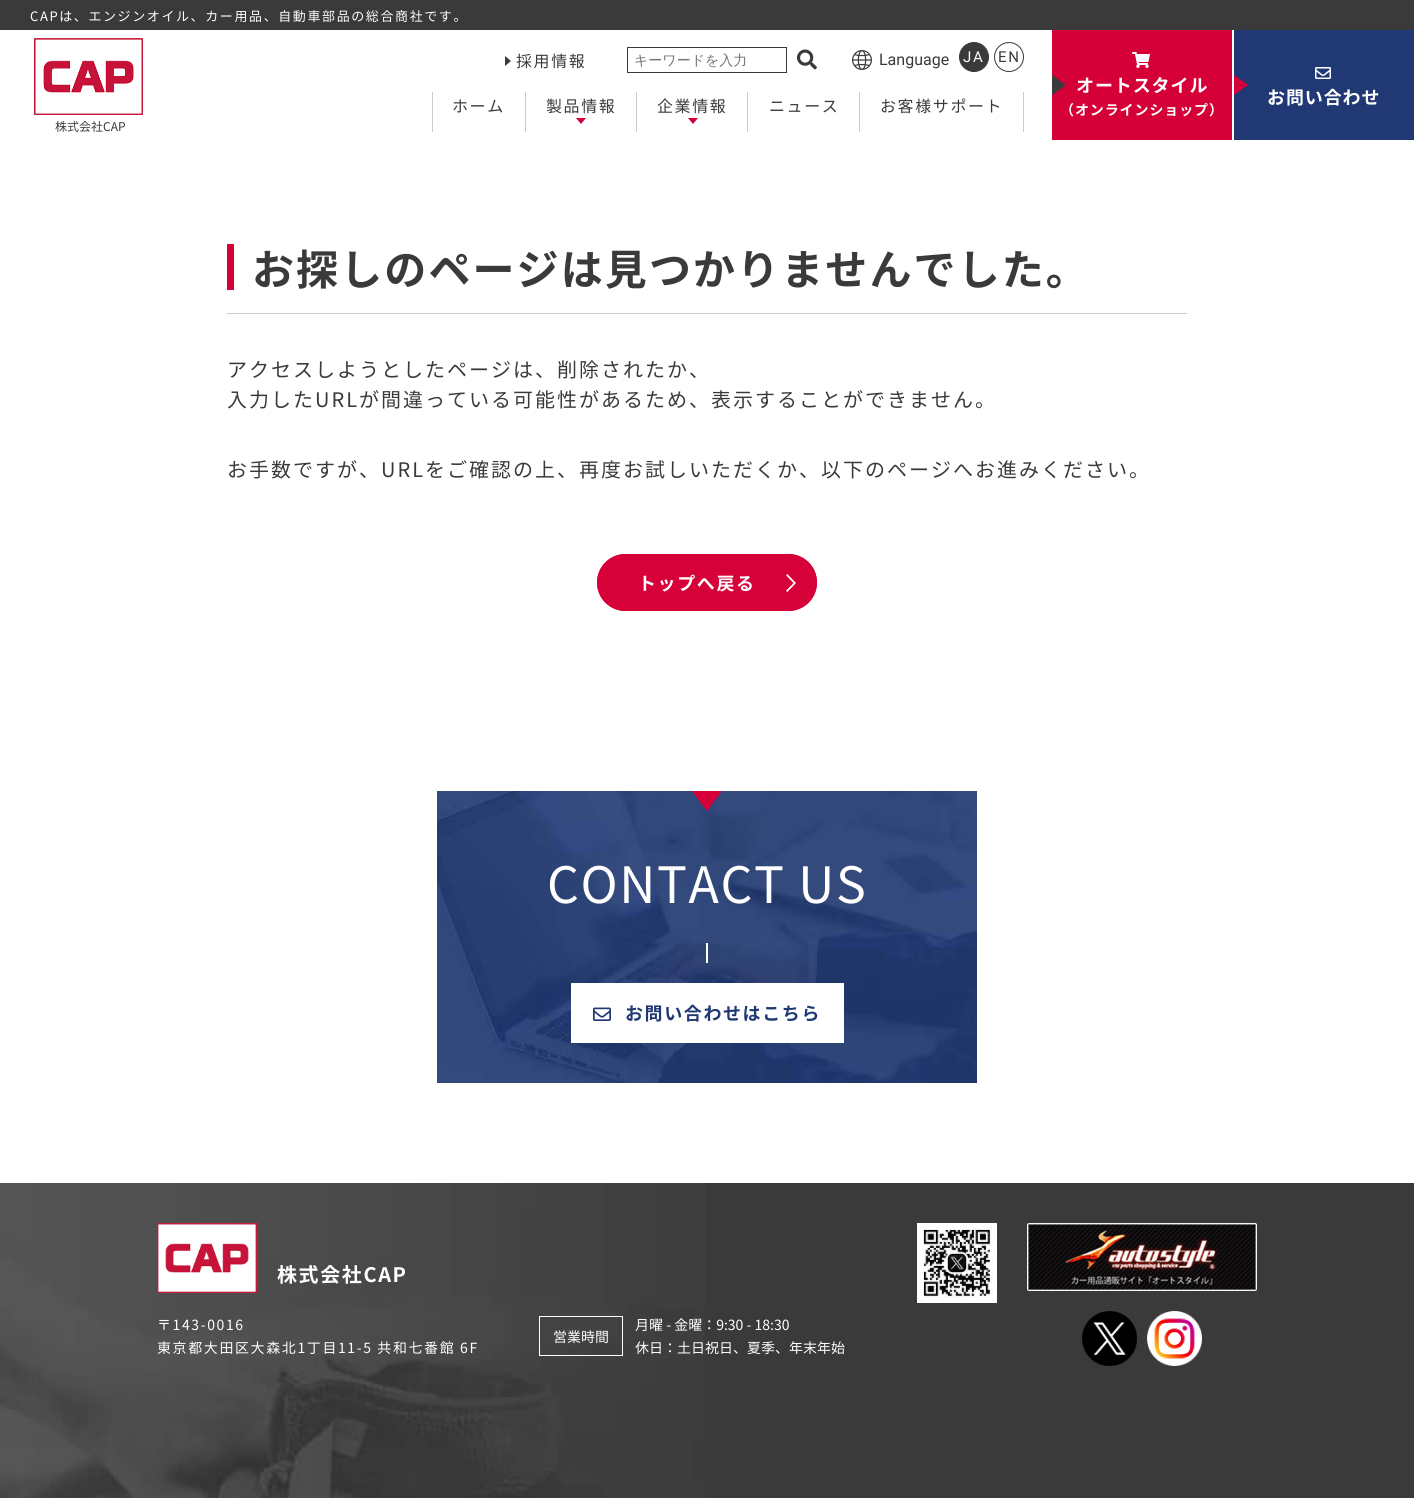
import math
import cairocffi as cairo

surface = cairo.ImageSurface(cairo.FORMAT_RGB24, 1414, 1498)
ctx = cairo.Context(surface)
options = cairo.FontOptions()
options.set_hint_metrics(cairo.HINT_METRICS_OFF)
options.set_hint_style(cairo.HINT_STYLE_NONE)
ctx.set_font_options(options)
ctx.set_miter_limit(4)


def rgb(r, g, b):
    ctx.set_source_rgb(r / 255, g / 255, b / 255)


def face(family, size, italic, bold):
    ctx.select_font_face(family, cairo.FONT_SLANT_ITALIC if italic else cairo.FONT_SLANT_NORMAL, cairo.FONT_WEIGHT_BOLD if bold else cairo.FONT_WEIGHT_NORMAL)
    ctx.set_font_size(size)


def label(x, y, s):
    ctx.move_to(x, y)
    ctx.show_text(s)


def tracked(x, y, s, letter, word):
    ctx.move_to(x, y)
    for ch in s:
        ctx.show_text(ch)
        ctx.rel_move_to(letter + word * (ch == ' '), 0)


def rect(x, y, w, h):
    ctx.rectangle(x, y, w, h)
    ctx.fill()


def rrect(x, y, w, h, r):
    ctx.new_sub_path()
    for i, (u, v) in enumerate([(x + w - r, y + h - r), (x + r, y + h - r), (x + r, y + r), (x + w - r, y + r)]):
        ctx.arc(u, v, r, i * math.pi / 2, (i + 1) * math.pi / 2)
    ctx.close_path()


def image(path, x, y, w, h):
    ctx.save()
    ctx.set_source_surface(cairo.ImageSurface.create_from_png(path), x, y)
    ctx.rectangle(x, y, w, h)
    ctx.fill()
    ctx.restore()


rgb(255, 255, 255)
ctx.paint()
rgb(58, 58, 58)
rect(0, 0, 1414, 30)
face('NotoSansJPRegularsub', 13, 0, 0)
rgb(255, 255, 255)
tracked(30, 21, 'CAPは、エンジンオイル、カー用品、自動車部品の総合商社です。', 1.6, 0)
rgb(58, 58, 58)
ctx.new_path()
ctx.move_to(505, 66)
ctx.line_to(505, 56)
ctx.line_to(511, 61)
ctx.close_path()
ctx.fill()
face('NotoSansJPRegularsub', 16, 0, 0)
tracked(516, 67, '採用情報', 1.6, 0)
ctx.rectangle(627.5, 47.5, 159, 25)
ctx.set_line_width(1)
ctx.stroke()
face('WenQuanYi Zen Hei Medium', 14, 0, 0)
rgb(117, 117, 117)
label(634, 65, 'キーワードを入力')
image('image0.png', 797, 49, 20, 21)
image('image1.png', 852, 50, 20, 20)
face('Roboto', 16, 0, 0)
rgb(58, 58, 58)
label(879, 65, 'Language')
ctx.new_path()
ctx.arc(974, 57, 14.5, 0, 2 * math.pi)
ctx.fill_preserve()
ctx.stroke()
face('Roboto', 15, 0, 0)
rgb(255, 255, 255)
tracked(963, 62, 'JA', 1.6, 0)
ctx.new_path()
ctx.arc(1009, 57, 14.5, 0, 2 * math.pi)
rgb(58, 58, 58)
ctx.stroke()
tracked(998, 62, 'EN', 1.6, 0)
rgb(204, 204, 204)
rect(432, 92, 1, 40)
face('NotoSansJPRegularsub', 16, 0, 0)
rgb(58, 58, 58)
tracked(452, 112, 'ホーム', 1.6, 0)
rgb(204, 204, 204)
rect(525, 92, 1, 40)
rgb(58, 58, 58)
tracked(546, 112, '製品情報', 1.6, 0)
rgb(213, 0, 55)
ctx.new_path()
ctx.move_to(576, 118)
ctx.line_to(586, 118)
ctx.line_to(581, 124)
ctx.close_path()
ctx.fill()
rgb(204, 204, 204)
rect(636, 92, 1, 40)
rgb(58, 58, 58)
tracked(657, 112, '企業情報', 1.6, 0)
rgb(213, 0, 55)
ctx.new_path()
ctx.move_to(688, 118)
ctx.line_to(698, 118)
ctx.line_to(693, 124)
ctx.close_path()
ctx.fill()
rgb(204, 204, 204)
rect(747, 92, 1, 40)
rgb(58, 58, 58)
tracked(769, 112, 'ニュース', 1.6, 0)
rgb(204, 204, 204)
rect(859, 92, 1, 40)
rgb(58, 58, 58)
tracked(880, 112, 'お客様サポート', 1.6, 0)
rgb(204, 204, 204)
rect(1023, 92, 1, 40)
rgb(213, 0, 55)
rect(1052, 30, 180, 110)
rgb(58, 58, 58)
ctx.new_path()
ctx.move_to(1052, 95)
ctx.line_to(1052, 75)
ctx.line_to(1066, 85)
ctx.close_path()
ctx.fill()
image('image2.png', 1132, 52, 18, 16)
face('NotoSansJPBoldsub', 18, 0, 1)
rgb(255, 255, 255)
tracked(1076, 92, 'オートスタイル', 0.9, 0)
face('NotoSansJPBoldsub', 14, 0, 1)
tracked(1060, 115, '（オンラインショップ）', 0.9, 0)
rgb(32, 56, 115)
rect(1234, 30, 180, 110)
rgb(213, 0, 55)
ctx.new_path()
ctx.move_to(1234, 95)
ctx.line_to(1234, 75)
ctx.line_to(1248, 85)
ctx.close_path()
ctx.fill()
image('image3.png', 1315, 67, 16, 12)
face('NotoSansJPBoldsub', 18, 0, 1)
rgb(255, 255, 255)
tracked(1267, 104, 'お問い合わせ', 0.9, 0)
image('image4.png', 34, 38, 109, 77)
face('NotoSansJPRegularsub', 12, 0, 0)
rgb(58, 58, 58)
label(55, 131, '株式会社CAP')
rgb(201, 201, 201)
rect(227, 313, 960, 1)
rgb(213, 1, 56)
rect(227, 244, 7, 46)
face('NotoSansJPBoldsub', 42, 0, 1)
rgb(58, 58, 58)
tracked(252, 285, 'お探しのページは見つかりませんでした。', 2.1, 0)
face('NotoSansJPRegularsub', 20, 0, 0)
tracked(227, 377, 'アクセスしようとしたページは、削除されたか、', 2, 0)
tracked(227, 407, '入力したURLが間違っている可能性があるため、表示することができません。', 2, 0)
tracked(227, 477, 'お手数ですが、URLをご確認の上、再度お試しいただくか、以下のページへお進みください。', 2, 0)
rgb(213, 1, 56)
rrect(597, 554, 220, 57, 28.5)
ctx.fill()
image('image5.png', 786, 574, 10, 18)
rrect(597.5, 554.5, 219, 56, 28)
ctx.stroke()
face('NotoSansJPBoldsub', 18, 0, 1)
rgb(255, 255, 255)
tracked(638, 590, 'トップへ戻る', 1.6, 0)
image('image6.png', 437, 791, 540, 292)
rgb(213, 0, 55)
ctx.new_path()
ctx.move_to(692, 791)
ctx.line_to(722, 791)
ctx.line_to(707, 811)
ctx.close_path()
ctx.fill()
face('NotoSansJPRegularsub', 50, 0, 0)
rgb(255, 255, 255)
tracked(547, 903, 'CONTACT US', 1.6, 0)
rect(706, 943, 2, 20)
rect(571, 983, 273, 60)
image('image7.png', 593, 1007, 18, 14)
face('NotoSansJPBoldsub', 18, 0, 1)
rgb(32, 56, 115)
tracked(625, 1020, 'お問い合わせはこちら', 1.6, 0)
rgb(58, 58, 58)
rect(705, 1183, 709, 315)
image('image8.png', 0, 1183, 705, 315)
image('image9.png', 157, 1223, 100, 70)
face('NotoSansJPBoldsub', 20, 0, 1)
rgb(255, 255, 255)
tracked(277, 1282, '株式会社CAP', 1.6, 0)
image('image10.png', 917, 1223, 80, 80)
image('image11.png', 1027, 1223, 230, 68)
image('image12.png', 1082, 1311, 55, 55)
image('image13.png', 1147, 1311, 55, 55)
face('NotoSansJPRegularsub', 14, 0, 0)
tracked(157, 1330, '〒143-0016', 1.6, 0)
tracked(157, 1353, '東京都大田区大森北1丁目11-5 共和七番館 6F', 1.6, 0)
ctx.rectangle(539.5, 1316.5, 83, 39)
ctx.stroke()
label(553, 1342, '営業時間')
label(635, 1330, '月曜 - 金曜：9:30 - 18:30')
label(635, 1353, '休日：土日祝日、夏季、年末年始')
surface.write_to_png('render.png')
